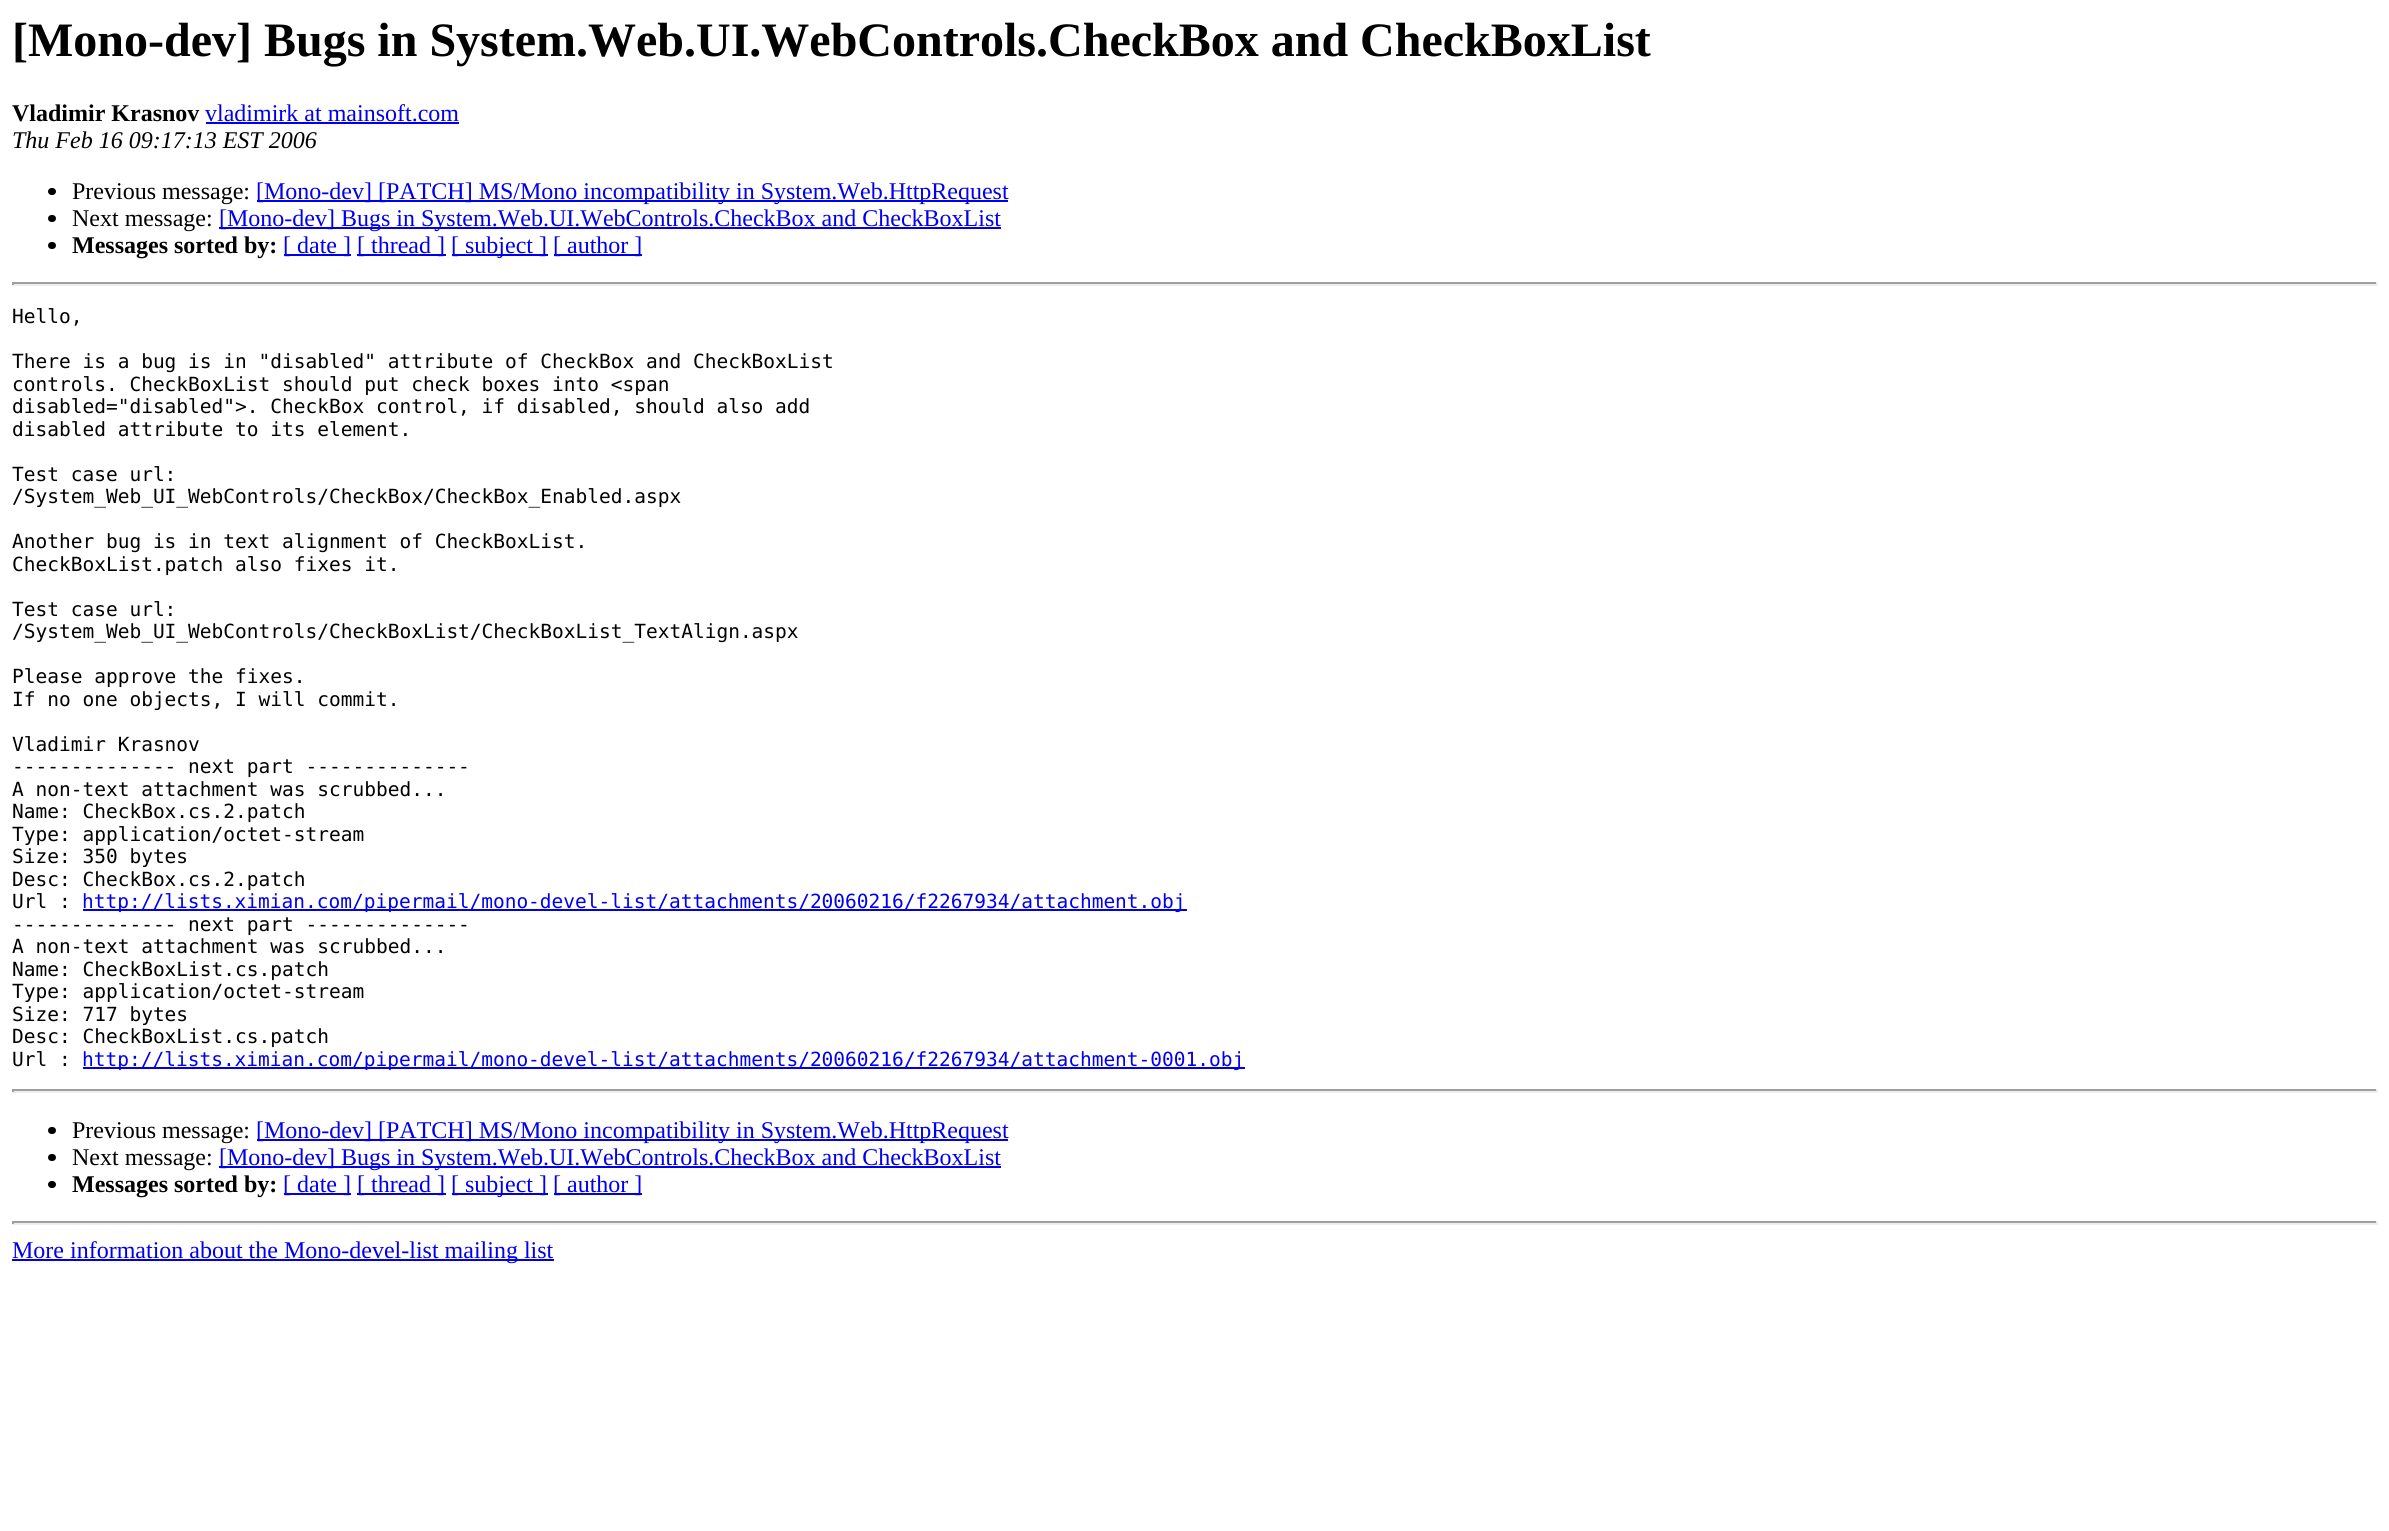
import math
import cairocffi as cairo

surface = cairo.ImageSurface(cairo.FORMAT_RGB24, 2389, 1531)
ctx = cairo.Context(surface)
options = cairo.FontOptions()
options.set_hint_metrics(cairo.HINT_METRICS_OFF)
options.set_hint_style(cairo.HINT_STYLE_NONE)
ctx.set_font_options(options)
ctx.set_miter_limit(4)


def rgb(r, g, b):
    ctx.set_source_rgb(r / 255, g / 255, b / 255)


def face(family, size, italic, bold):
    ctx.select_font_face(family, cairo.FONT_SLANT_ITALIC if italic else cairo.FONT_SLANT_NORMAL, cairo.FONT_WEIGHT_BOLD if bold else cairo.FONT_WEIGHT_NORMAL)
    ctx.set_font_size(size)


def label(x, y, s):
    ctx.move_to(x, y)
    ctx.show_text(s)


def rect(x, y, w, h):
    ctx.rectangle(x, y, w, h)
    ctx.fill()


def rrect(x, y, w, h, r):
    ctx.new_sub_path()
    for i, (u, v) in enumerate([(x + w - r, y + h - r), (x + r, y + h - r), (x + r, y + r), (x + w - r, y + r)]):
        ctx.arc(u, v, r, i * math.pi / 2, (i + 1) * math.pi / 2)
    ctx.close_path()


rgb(255, 255, 255)
ctx.paint()
face('Liberation Serif', 48, 0, 1)
rgb(0, 0, 0)
label(12, 56, '[Mono-dev] Bugs in System.Web.UI.WebControls.CheckBox and CheckBoxList')
face('Liberation Serif', 24, 0, 1)
label(12, 121, 'Vladimir Krasnov')
face('Liberation Serif', 24, 0, 0)
rgb(0, 0, 238)
label(205, 121, 'vladimirk at mainsoft.com')
rect(206, 122, 253, 2)
face('Liberation Serif', 24, 1, 0)
rgb(0, 0, 0)
label(12, 148, 'Thu Feb 16 09:17:13 EST 2006')
rrect(48, 188, 8, 7, 3.5)
ctx.fill()
face('Liberation Serif', 24, 0, 0)
label(72, 199, 'Previous message:')
rgb(0, 0, 238)
rect(257, 200, 751, 2)
label(256, 199, '[Mono-dev] [PATCH] MS/Mono incompatibility in System.Web.HttpRequest')
rgb(0, 0, 0)
rrect(48, 215, 8, 7, 3.5)
ctx.fill()
label(72, 226, 'Next message:')
rgb(0, 0, 238)
rect(219, 227, 782, 2)
label(219, 226, '[Mono-dev] Bugs in System.Web.UI.WebControls.CheckBox and CheckBoxList')
rgb(0, 0, 0)
rrect(48, 242, 8, 7, 3.5)
ctx.fill()
face('Liberation Serif', 24, 0, 1)
label(72, 253, 'Messages sorted by:')
rgb(0, 0, 238)
rect(284, 254, 67, 2)
face('Liberation Serif', 24, 0, 0)
label(283, 253, '[ date ]')
rect(357, 254, 89, 2)
label(357, 253, '[ thread ]')
rect(452, 254, 96, 2)
label(451, 253, '[ subject ]')
rect(554, 254, 88, 2)
label(553, 253, '[ author ]')
rgb(159, 159, 159)
rect(12, 282, 2366, 2)
rgb(238, 238, 238)
rect(2376, 282, 2, 3)
rect(12, 284, 2366, 2)
rgb(159, 159, 159)
rect(12, 282, 2, 3)
face('DejaVu Sans Mono', 19.5, 0, 0)
rgb(0, 0, 0)
label(12, 323, 'Hello,')
label(12, 368, 'There is a bug is in "disabled" attribute of CheckBox and CheckBoxList')
label(12, 391, 'controls. CheckBoxList should put check boxes into <span')
label(12, 413, 'disabled="disabled">. CheckBox control, if disabled, should also add')
label(12, 436, 'disabled attribute to its element.')
label(12, 481, 'Test case url:')
label(12, 503, '/System_Web_UI_WebControls/CheckBox/CheckBox_Enabled.aspx')
label(12, 548, 'Another bug is in text alignment of CheckBoxList.')
label(12, 571, 'CheckBoxList.patch also fixes it.')
label(12, 616, 'Test case url:')
label(12, 638, '/System_Web_UI_WebControls/CheckBoxList/CheckBoxList_TextAlign.aspx')
label(12, 683, 'Please approve the fixes.')
label(12, 706, 'If no one objects, I will commit.')
label(12, 751, 'Vladimir Krasnov')
label(12, 773, '-------------- next part --------------')
label(12, 796, 'A non-text attachment was scrubbed...')
label(12, 818, 'Name: CheckBox.cs.2.patch')
label(12, 841, 'Type: application/octet-stream')
label(12, 863, 'Size: 350 bytes')
label(12, 886, 'Desc: CheckBox.cs.2.patch')
label(12, 908, 'Url :')
rgb(0, 0, 238)
rect(83, 909, 1104, 2)
label(82, 908, 'http://lists.ximian.com/pipermail/mono-devel-list/attachments/20060216/f2267934/attachment.obj')
rgb(0, 0, 0)
label(12, 931, '-------------- next part --------------')
label(12, 953, 'A non-text attachment was scrubbed...')
label(12, 976, 'Name: CheckBoxList.cs.patch')
label(12, 998, 'Type: application/octet-stream')
label(12, 1021, 'Size: 717 bytes')
label(12, 1043, 'Desc: CheckBoxList.cs.patch')
label(12, 1066, 'Url :')
rgb(0, 0, 238)
rect(83, 1067, 1162, 2)
label(82, 1066, 'http://lists.ximian.com/pipermail/mono-devel-list/attachments/20060216/f2267934/attachment-0001.obj')
rgb(159, 159, 159)
rect(12, 1089, 2366, 2)
rgb(238, 238, 238)
rect(2376, 1089, 2, 3)
rect(12, 1091, 2366, 2)
rgb(159, 159, 159)
rect(12, 1089, 2, 3)
rgb(0, 0, 0)
rrect(48, 1127, 8, 7, 3.5)
ctx.fill()
face('Liberation Serif', 24, 0, 0)
label(72, 1138, 'Previous message:')
rgb(0, 0, 238)
rect(257, 1139, 751, 2)
label(256, 1138, '[Mono-dev] [PATCH] MS/Mono incompatibility in System.Web.HttpRequest')
rgb(0, 0, 0)
rrect(48, 1154, 8, 7, 3.5)
ctx.fill()
label(72, 1165, 'Next message:')
rgb(0, 0, 238)
rect(219, 1166, 782, 2)
label(219, 1165, '[Mono-dev] Bugs in System.Web.UI.WebControls.CheckBox and CheckBoxList')
rgb(0, 0, 0)
rrect(48, 1181, 8, 7, 3.5)
ctx.fill()
face('Liberation Serif', 24, 0, 1)
label(72, 1192, 'Messages sorted by:')
rgb(0, 0, 238)
rect(284, 1193, 67, 2)
face('Liberation Serif', 24, 0, 0)
label(283, 1192, '[ date ]')
rect(357, 1193, 89, 2)
label(357, 1192, '[ thread ]')
rect(452, 1193, 96, 2)
label(451, 1192, '[ subject ]')
rect(554, 1193, 88, 2)
label(553, 1192, '[ author ]')
rgb(159, 159, 159)
rect(12, 1221, 2366, 2)
rgb(238, 238, 238)
rect(2376, 1221, 2, 3)
rect(12, 1223, 2366, 2)
rgb(159, 159, 159)
rect(12, 1221, 2, 3)
rgb(0, 0, 238)
rect(12, 1259, 542, 2)
label(12, 1258, 'More information about the Mono-devel-list mailing list')
surface.write_to_png('render.png')
